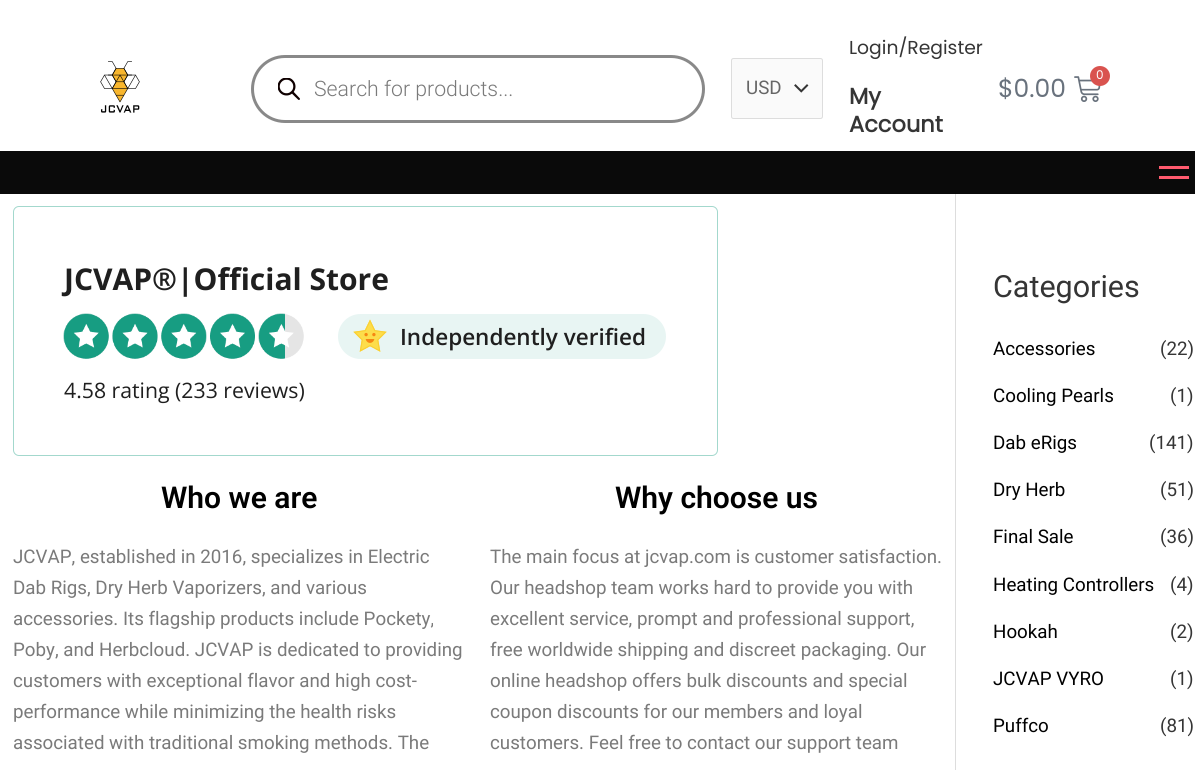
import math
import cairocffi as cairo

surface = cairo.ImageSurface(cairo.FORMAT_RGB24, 1195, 770)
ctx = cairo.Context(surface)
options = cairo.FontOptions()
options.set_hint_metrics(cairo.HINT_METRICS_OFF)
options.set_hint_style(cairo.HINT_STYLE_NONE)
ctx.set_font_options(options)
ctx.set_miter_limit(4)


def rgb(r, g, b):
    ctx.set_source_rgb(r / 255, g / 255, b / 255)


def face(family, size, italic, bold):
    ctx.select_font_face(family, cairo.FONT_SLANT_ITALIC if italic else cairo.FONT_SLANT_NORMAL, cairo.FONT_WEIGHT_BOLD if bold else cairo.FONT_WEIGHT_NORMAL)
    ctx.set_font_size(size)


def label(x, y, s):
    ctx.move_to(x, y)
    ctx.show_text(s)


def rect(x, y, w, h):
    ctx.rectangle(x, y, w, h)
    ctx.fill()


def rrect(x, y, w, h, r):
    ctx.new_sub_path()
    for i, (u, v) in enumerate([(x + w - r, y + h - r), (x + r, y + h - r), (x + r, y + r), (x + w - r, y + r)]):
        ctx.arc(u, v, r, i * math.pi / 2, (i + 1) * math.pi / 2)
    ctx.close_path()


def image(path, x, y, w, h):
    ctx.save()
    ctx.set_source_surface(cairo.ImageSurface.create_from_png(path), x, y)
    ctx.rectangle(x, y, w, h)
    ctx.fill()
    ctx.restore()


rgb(255, 255, 255)
ctx.paint()
image('image0.png', 100, 61, 40, 52)
rrect(252.5, 56.5, 451, 65, 32.5)
rgb(137, 137, 137)
ctx.set_line_width(3)
ctx.stroke()
image('image1.png', 278, 78, 22, 22)
face('Roboto Light', 21.25, 0, 0)
rgb(122, 122, 122)
label(314, 96, 'Search for products...')
rgb(250, 250, 250)
rrect(731, 58, 92, 61, 2.5)
ctx.fill()
image('image2.png', 794, 84, 15, 9)
rrect(731.5, 58.5, 91, 60, 2)
rgb(221, 221, 221)
ctx.set_line_width(1)
ctx.stroke()
face('Roboto', 18.75, 0, 0)
rgb(102, 102, 102)
label(746, 94, 'USD')
face('Poppins', 18.75, 0, 0)
rgb(53, 53, 53)
label(849, 54, 'Login/Register')
face('Poppins', 22.5, 0, 1)
label(849, 104, 'My')
label(849, 132, 'Account')
image('image3.png', 1074, 76, 27, 26)
rgb(217, 83, 79)
ctx.arc(1100, 76, 10, 0, 2 * math.pi)
ctx.fill()
face('Poppins', 12, 0, 0)
rgb(255, 255, 255)
label(1096, 79, '0')
face('Poppins', 25, 0, 0)
rgb(105, 114, 125)
label(998, 97, '$0.00')
rgb(10, 10, 10)
rect(0, 151, 1195, 43)
rgb(255, 90, 110)
rect(1159, 166, 30, 3)
rect(1159, 176, 30, 3)
rgb(221, 221, 221)
rect(955, 194, 1, 576)
rrect(13.5, 206.5, 704, 249, 5.5)
rgb(163, 216, 205)
ctx.stroke()
face('Open Sans', 30, 0, 1)
rgb(31, 31, 31)
label(64, 290, 'JCVAP®|Official Store')
image('image4.png', 63, 313, 46, 46)
image('image5.png', 63, 313, 46, 46)
image('image6.png', 112, 313, 46, 46)
image('image7.png', 112, 313, 46, 46)
image('image8.png', 161, 313, 46, 46)
image('image9.png', 161, 313, 46, 46)
image('image10.png', 210, 313, 45, 46)
image('image11.png', 210, 313, 45, 46)
image('image4.png', 258, 313, 46, 46)
image('image12.png', 258, 313, 27, 46)
rgb(232, 245, 243)
rrect(338, 314, 328, 45, 22.5)
ctx.fill()
image('image13.png', 353, 319, 34, 33)
face('Open Sans SemiBold', 22.5, 0, 0)
rgb(31, 31, 31)
label(400, 345, 'Independently verified')
face('Open Sans', 21.25, 0, 0)
label(64, 398, '4.58 rating (233 reviews)')
face('Roboto SemiBold', 30, 0, 0)
rgb(0, 0, 0)
label(161, 508, 'Who we are')
face('Roboto', 18.75, 0, 0)
rgb(122, 122, 122)
label(13, 563, 'JCVAP, established in 2016, specializes in Electric')
label(13, 594, 'Dab Rigs, Dry Herb Vaporizers, and various')
label(13, 625, 'accessories. Its flagship products include Pockety,')
label(13, 656, 'Poby, and Herbcloud. JCVAP is dedicated to providing')
label(13, 687, 'customers with exceptional flavor and high cost-')
label(13, 718, 'performance while minimizing the health risks')
label(13, 749, 'associated with traditional smoking methods. The')
face('Roboto SemiBold', 30, 0, 0)
rgb(0, 0, 0)
label(615, 508, 'Why choose us')
face('Roboto', 18.75, 0, 0)
rgb(122, 122, 122)
label(490, 563, 'The main focus at jcvap.com is customer satisfaction.')
label(490, 594, 'Our headshop team works hard to provide you with')
label(490, 625, 'excellent service, prompt and professional support,')
label(490, 656, 'free worldwide shipping and discreet packaging. Our')
label(490, 687, 'online headshop offers bulk discounts and special')
label(490, 718, 'coupon discounts for our members and loyal')
label(490, 749, 'customers. Feel free to contact our support team')
face('Roboto', 30.5, 0, 0)
rgb(53, 53, 53)
label(993, 297, 'Categories')
face('Roboto', 18.75, 0, 0)
rgb(0, 0, 0)
label(993, 355, 'Accessories')
rgb(53, 53, 53)
label(1160, 355, '(22)')
rgb(0, 0, 0)
label(993, 402, 'Cooling Pearls')
rgb(53, 53, 53)
label(1170, 402, '(1)')
rgb(0, 0, 0)
label(993, 449, 'Dab eRigs')
rgb(53, 53, 53)
label(1149, 449, '(141)')
rgb(0, 0, 0)
label(993, 496, 'Dry Herb')
rgb(53, 53, 53)
label(1160, 496, '(51)')
rgb(0, 0, 0)
label(993, 543, 'Final Sale')
rgb(53, 53, 53)
label(1160, 543, '(36)')
rgb(0, 0, 0)
label(993, 591, 'Heating Controllers')
rgb(53, 53, 53)
label(1170, 591, '(4)')
rgb(0, 0, 0)
label(993, 638, 'Hookah')
rgb(53, 53, 53)
label(1170, 638, '(2)')
rgb(0, 0, 0)
label(993, 685, 'JCVAP VYRO')
rgb(53, 53, 53)
label(1170, 685, '(1)')
rgb(0, 0, 0)
label(993, 732, 'Puffco')
rgb(53, 53, 53)
label(1160, 732, '(81)')
surface.write_to_png('render.png')
